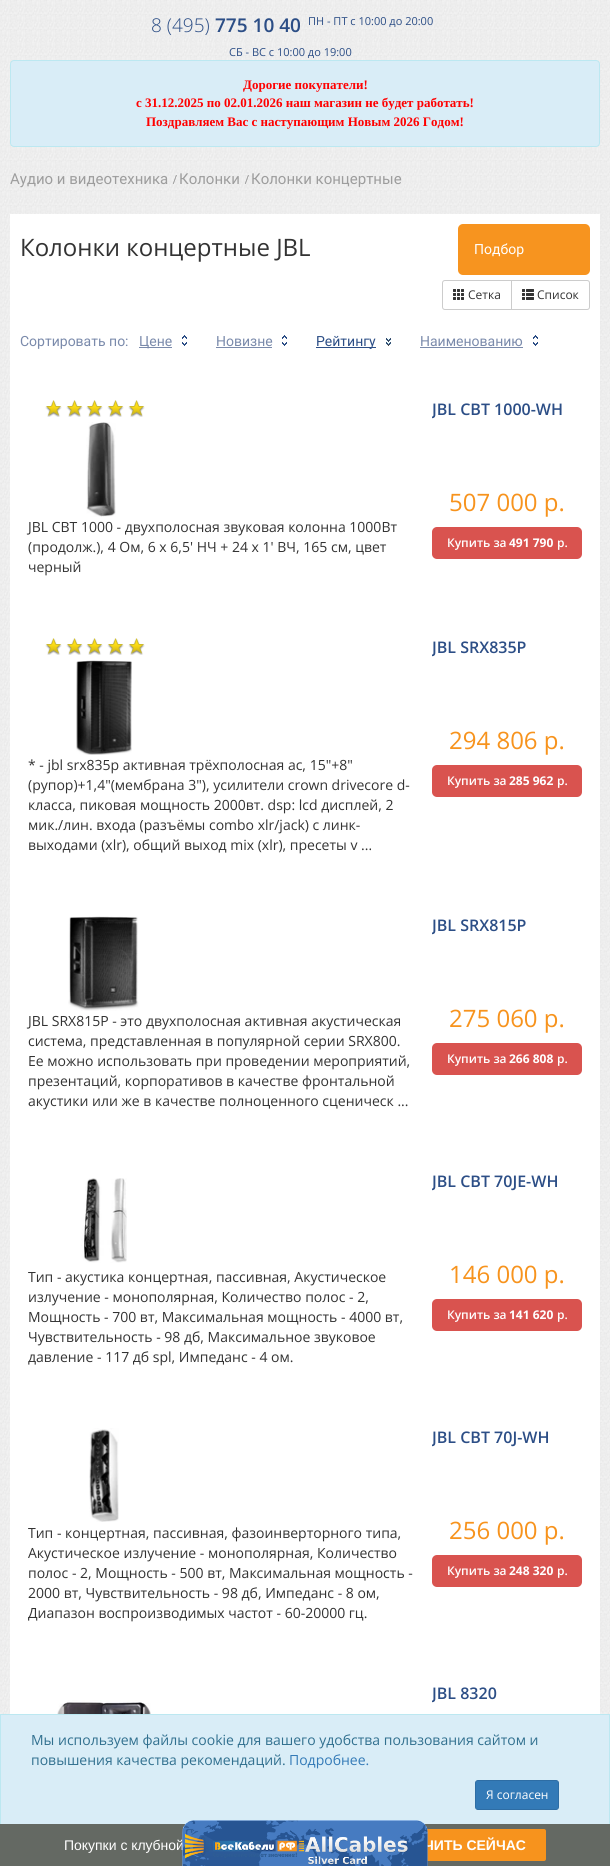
import math
import cairocffi as cairo

surface = cairo.ImageSurface(cairo.FORMAT_RGB24, 610, 1866)
ctx = cairo.Context(surface)
options = cairo.FontOptions()
options.set_hint_metrics(cairo.HINT_METRICS_OFF)
options.set_hint_style(cairo.HINT_STYLE_NONE)
ctx.set_font_options(options)
ctx.set_miter_limit(4)


def rgb(r, g, b):
    ctx.set_source_rgb(r / 255, g / 255, b / 255)


def face(family, size, italic, bold):
    ctx.select_font_face(family, cairo.FONT_SLANT_ITALIC if italic else cairo.FONT_SLANT_NORMAL, cairo.FONT_WEIGHT_BOLD if bold else cairo.FONT_WEIGHT_NORMAL)
    ctx.set_font_size(size)


def label(x, y, s):
    ctx.move_to(x, y)
    ctx.show_text(s)


def rect(x, y, w, h):
    ctx.rectangle(x, y, w, h)
    ctx.fill()


def rrect(x, y, w, h, r):
    ctx.new_sub_path()
    for i, (u, v) in enumerate([(x + w - r, y + h - r), (x + r, y + h - r), (x + r, y + r), (x + w - r, y + r)]):
        ctx.arc(u, v, r, i * math.pi / 2, (i + 1) * math.pi / 2)
    ctx.close_path()


def image(path, x, y, w, h):
    ctx.save()
    ctx.set_source_surface(cairo.ImageSurface.create_from_png(path), x, y)
    ctx.rectangle(x, y, w, h)
    ctx.fill()
    ctx.restore()


rgb(255, 255, 255)
ctx.paint()
image('image0.png', 0, 0, 610, 1714)
face('Open Sans Light', 19, 0, 0)
rgb(44, 78, 134)
label(151, 32, '8 (495)')
face('Open Sans SemiBold', 19, 0, 0)
label(215, 32, '775 10 40')
face('Open Sans', 11, 0, 0)
label(308, 25, 'ПН - ПТ с 10:00 до 20:00')
label(229, 56, 'СБ - ВС с 10:00 до 19:00')
rgb(217, 237, 247)
rrect(10.5, 60.5, 589, 86, 3.5)
ctx.fill_preserve()
rgb(188, 232, 241)
ctx.set_line_width(1)
ctx.stroke()
face('Liberation Serif', 13, 0, 1)
rgb(255, 0, 0)
label(243, 89, 'Дорогие покупатели!')
label(136, 107, 'с 31.12.2025 по 02.01.2026 наш магазин не будет работать!')
label(146, 126, 'Поздравляем Вас с наступающим Новым 2026 Годом!')
face('Roboto', 15, 0, 0)
rgb(157, 157, 157)
label(10, 184, 'Аудио и видеотехника')
image('image1.png', 172, 175, 5, 9)
label(179, 184, 'Колонки')
image('image2.png', 244, 175, 5, 9)
label(251, 184, 'Колонки концертные')
rgb(255, 255, 255)
rect(10, 214, 590, 1500)
face('Open Sans', 24, 0, 0)
rgb(51, 51, 51)
label(20, 256, 'Колонки концертные JBL')
ctx.new_path()
ctx.move_to(445, 280.5)
ctx.line_to(511.5, 280.5)
ctx.line_to(511.5, 309.5)
ctx.line_to(445, 309.5)
ctx.curve_to(443.5, 309.5, 442.5, 308.5, 442.5, 307)
ctx.line_to(442.5, 283)
ctx.curve_to(442.5, 281.5, 443.5, 280.5, 445, 280.5)
ctx.close_path()
rgb(204, 204, 204)
ctx.stroke()
image('image3.png', 453, 289, 11, 11)
face('Open Sans', 12, 0, 0)
rgb(51, 51, 51)
label(468, 299, 'Сетка')
rgb(255, 255, 255)
ctx.new_path()
ctx.move_to(511.5, 280.5)
ctx.line_to(587, 280.5)
ctx.curve_to(588.5, 280.5, 589.5, 281.5, 589.5, 283)
ctx.line_to(589.5, 307)
ctx.curve_to(589.5, 308.5, 588.5, 309.5, 587, 309.5)
ctx.line_to(511.5, 309.5)
ctx.close_path()
ctx.fill_preserve()
rgb(204, 204, 204)
ctx.stroke()
image('image4.png', 522, 289, 12, 11)
rgb(51, 51, 51)
label(537, 299, 'Список')
face('Roboto', 14, 0, 0)
rgb(122, 138, 171)
label(20, 346, 'Сортировать по:')
image('image5.png', 182, 335, 5, 11)
rect(139, 347, 33, 1)
label(139, 346, 'Цене')
image('image5.png', 282, 335, 5, 11)
label(216, 346, 'Новизне')
rect(216, 347, 56, 1)
image('image6.png', 386, 338, 5, 8)
rgb(44, 78, 134)
rect(316, 347, 60, 1)
label(316, 346, 'Рейтингу')
image('image5.png', 533, 335, 5, 11)
rgb(122, 138, 171)
label(420, 346, 'Наименованию')
rect(420, 347, 103, 1)
image('image7.png', 45, 400, 17, 17)
image('image7.png', 66, 400, 17, 17)
image('image7.png', 86, 400, 17, 17)
image('image7.png', 107, 400, 17, 17)
image('image7.png', 128, 400, 17, 17)
image('image8.png', 86, 422, 30, 95)
face('Open Sans', 14, 0, 0)
rgb(51, 51, 51)
label(28, 532, 'JBL CBT 1000 - двухполосная звуковая колонна 1000Вт')
label(28, 552, '(продолж.), 4 Ом, 6 x 6,5\' НЧ + 24 x 1\' ВЧ, 165 см, цвет')
label(28, 572, 'черный')
ctx.save()
ctx.rectangle(432, 400, 131, 82)
ctx.clip()
face('Open Sans SemiBold', 16, 0, 0)
rgb(44, 78, 134)
label(432, 415, 'JBL CBT 1000-WH')
ctx.restore()
face('Open Sans', 24, 0, 0)
rgb(247, 147, 29)
label(449, 511, '507 000 р.')
rgb(217, 83, 79)
rrect(432, 527, 150, 32, 5)
ctx.fill()
face('Open Sans SemiBold', 12, 0, 0)
rgb(255, 255, 255)
label(447, 547, 'Купить за')
face('Open Sans', 12, 0, 1)
label(509, 547, '491 790')
face('Open Sans SemiBold', 12, 0, 0)
label(557, 547, 'р.')
ctx.save()
ctx.rectangle(432, 638, 94, 82)
ctx.clip()
face('Open Sans SemiBold', 16, 0, 0)
rgb(44, 78, 134)
label(432, 653, 'JBL SRX835P')
ctx.restore()
face('Open Sans', 24, 0, 0)
rgb(247, 147, 29)
label(449, 749, '294 806 р.')
rgb(217, 83, 79)
rrect(432, 765, 150, 32, 5)
ctx.fill()
face('Open Sans SemiBold', 12, 0, 0)
rgb(255, 255, 255)
label(447, 785, 'Купить за')
face('Open Sans', 12, 0, 1)
label(509, 785, '285 962')
face('Open Sans SemiBold', 12, 0, 0)
label(557, 785, 'р.')
image('image7.png', 45, 638, 17, 17)
image('image7.png', 66, 638, 17, 17)
image('image7.png', 86, 638, 17, 17)
image('image7.png', 107, 638, 17, 17)
image('image7.png', 128, 638, 17, 17)
image('image9.png', 76, 660, 56, 95)
face('Open Sans', 14, 0, 0)
rgb(51, 51, 51)
label(28, 770, '* - jbl srx835p активная трёхполосная ас, 15"+8"')
label(28, 790, '(рупор)+1,4"(мембрана 3"), усилители crown drivecore d-')
label(28, 810, 'класса, пиковая мощность 2000вт. dsp: lcd дисплей, 2')
label(28, 830, 'мик./лин. входа (разъёмы combo xlr/jack) с линк-')
label(28, 850, 'выходами (xlr), общий выход mix (xlr), пресеты v ...')
image('image10.png', 68, 916, 71, 95)
label(28, 1026, 'JBL SRX815P - это двухполосная активная акустическая')
label(28, 1046, 'система, представленная в популярной серии SRX800.')
label(28, 1066, 'Ее можно использовать при проведении мероприятий,')
label(28, 1086, 'презентаций, корпоративов в качестве фронтальной')
label(28, 1106, 'акустики или же в качестве полноценного сценическ ...')
ctx.save()
ctx.rectangle(432, 916, 94, 82)
ctx.clip()
face('Open Sans SemiBold', 16, 0, 0)
rgb(44, 78, 134)
label(432, 931, 'JBL SRX815P')
ctx.restore()
face('Open Sans', 24, 0, 0)
rgb(247, 147, 29)
label(449, 1027, '275 060 р.')
rgb(217, 83, 79)
rrect(432, 1043, 150, 32, 5)
ctx.fill()
face('Open Sans SemiBold', 12, 0, 0)
rgb(255, 255, 255)
label(447, 1063, 'Купить за')
face('Open Sans', 12, 0, 1)
label(509, 1063, '266 808')
face('Open Sans SemiBold', 12, 0, 0)
label(557, 1063, 'р.')
image('image11.png', 81, 1178, 46, 85)
face('Open Sans', 14, 0, 0)
rgb(51, 51, 51)
label(28, 1282, 'Тип - акустика концертная, пассивная, Акустическое')
label(28, 1302, 'излучение - монополярная, Количество полос - 2,')
label(28, 1322, 'Мощность - 700 вт, Максимальная мощность - 4000 вт,')
label(28, 1342, 'Чувствительность - 98 дб, Максимальное звуковое')
label(28, 1362, 'давление - 117 дб spl, Импеданс - 4 ом.')
ctx.save()
ctx.rectangle(432, 1172, 126, 82)
ctx.clip()
face('Open Sans SemiBold', 16, 0, 0)
rgb(44, 78, 134)
label(432, 1187, 'JBL CBT 70JE-WH')
ctx.restore()
face('Open Sans', 24, 0, 0)
rgb(247, 147, 29)
label(449, 1283, '146 000 р.')
rgb(217, 83, 79)
rrect(432, 1299, 150, 32, 5)
ctx.fill()
face('Open Sans SemiBold', 12, 0, 0)
rgb(255, 255, 255)
label(447, 1319, 'Купить за')
face('Open Sans', 12, 0, 1)
label(509, 1319, '141 620')
face('Open Sans SemiBold', 12, 0, 0)
label(557, 1319, 'р.')
image('image12.png', 89, 1428, 30, 94)
face('Open Sans', 14, 0, 0)
rgb(51, 51, 51)
label(28, 1538, 'Тип - концертная, пассивная, фазоинверторного типа,')
label(28, 1558, 'Акустическое излучение - монополярная, Количество')
label(28, 1578, 'полос - 2, Мощность - 500 вт, Максимальная мощность -')
label(28, 1598, '2000 вт, Чувствительность - 98 дб, Импеданс - 8 ом,')
label(28, 1618, 'Диапазон воспроизводимых частот - 60-20000 гц.')
ctx.save()
ctx.rectangle(432, 1428, 117, 82)
ctx.clip()
face('Open Sans SemiBold', 16, 0, 0)
rgb(44, 78, 134)
label(432, 1443, 'JBL CBT 70J-WH')
ctx.restore()
face('Open Sans', 24, 0, 0)
rgb(247, 147, 29)
label(449, 1539, '256 000 р.')
rgb(217, 83, 79)
rrect(432, 1555, 150, 32, 5)
ctx.fill()
face('Open Sans SemiBold', 12, 0, 0)
rgb(255, 255, 255)
label(447, 1575, 'Купить за')
face('Open Sans', 12, 0, 1)
label(509, 1575, '248 320')
face('Open Sans SemiBold', 12, 0, 0)
label(557, 1575, 'р.')
ctx.save()
ctx.rectangle(432, 1684, 65, 82)
ctx.clip()
face('Open Sans SemiBold', 16, 0, 0)
rgb(44, 78, 134)
label(432, 1699, 'JBL 8320')
ctx.restore()
image('image13.png', 57, 1700, 94, 14)
rgb(247, 148, 31)
rrect(458, 224, 132, 51, 5)
ctx.fill()
face('Roboto', 14, 0, 0)
rgb(255, 255, 255)
label(474, 254, 'Подбор')
rgb(217, 237, 247)
rect(1, 1715, 608, 109)
ctx.rectangle(0.5, 1714.5, 609, 111)
rgb(188, 232, 241)
ctx.stroke()
face('Open Sans', 14, 0, 0)
rgb(49, 112, 143)
label(31, 1745, 'Мы используем файлы cookie для вашего удобства пользования сайтом и')
label(31, 1765, 'повышения качества рекомендаций.')
rgb(51, 122, 183)
label(289, 1765, 'Подробнее.')
rrect(475.5, 1780.5, 83, 29, 2.5)
ctx.fill_preserve()
rgb(46, 109, 164)
ctx.stroke()
face('Open Sans', 12, 0, 0)
rgb(255, 255, 255)
label(486, 1799, 'Я согласен')
rgb(100, 105, 99)
rect(0, 1824, 610, 42)
face('Liberation Sans', 14, 0, 0)
rgb(255, 255, 255)
label(64, 1850, 'Покупки с клубной')
rgb(247, 147, 29)
rrect(365, 1829, 181, 32, 2)
ctx.fill()
face('Liberation Sans', 14, 0, 1)
rgb(255, 255, 255)
label(424, 1850, 'ЧИТЬ СЕЙЧАС')
image('image14.png', 182, 1820, 246, 46)
surface.write_to_png('render.png')
